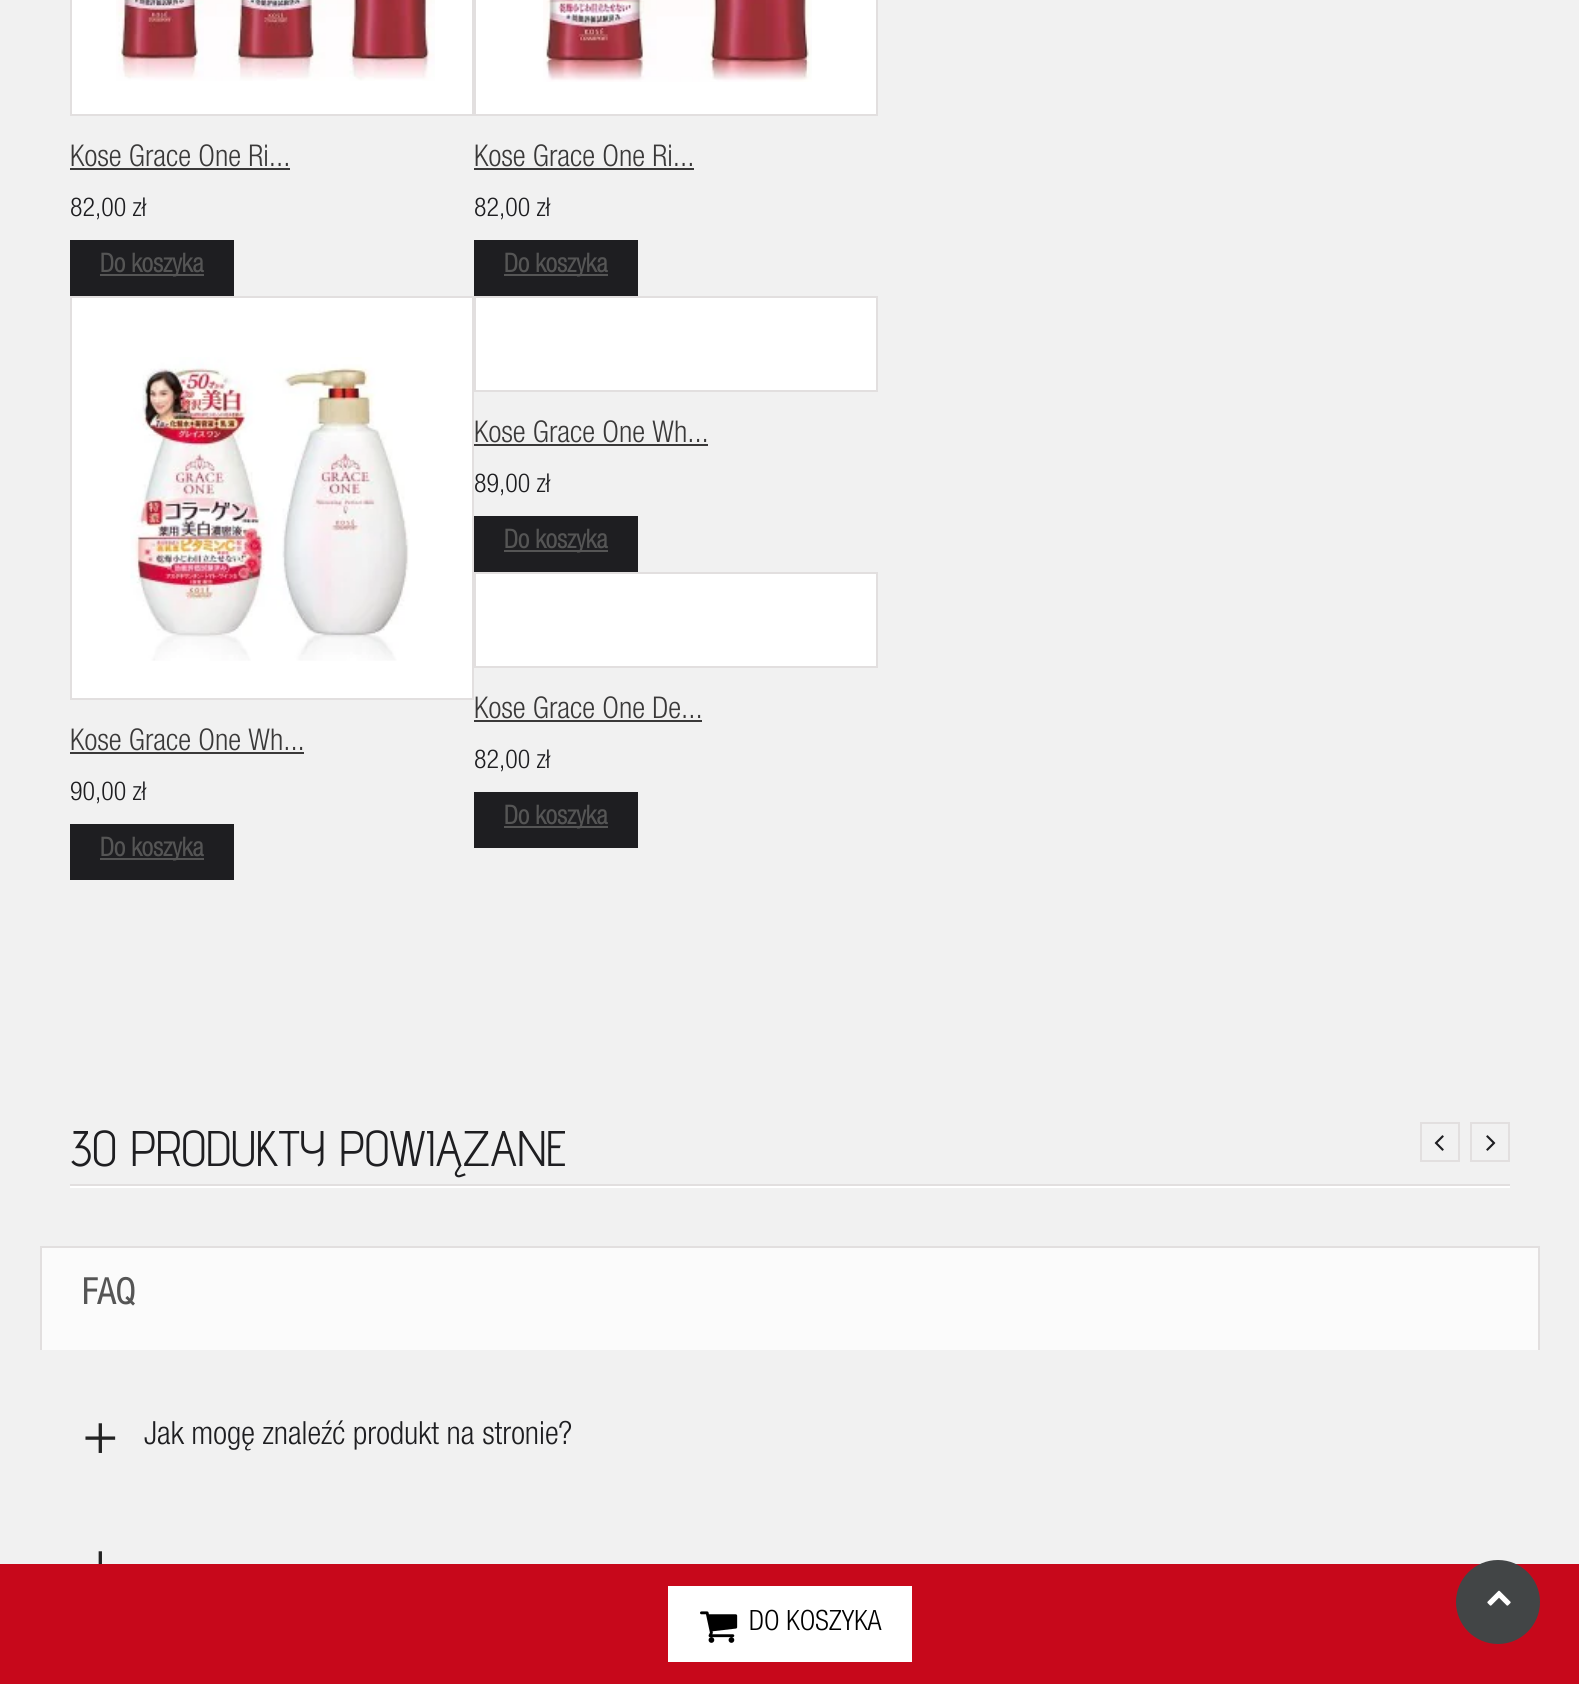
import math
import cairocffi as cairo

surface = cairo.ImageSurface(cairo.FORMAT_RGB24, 1579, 1684)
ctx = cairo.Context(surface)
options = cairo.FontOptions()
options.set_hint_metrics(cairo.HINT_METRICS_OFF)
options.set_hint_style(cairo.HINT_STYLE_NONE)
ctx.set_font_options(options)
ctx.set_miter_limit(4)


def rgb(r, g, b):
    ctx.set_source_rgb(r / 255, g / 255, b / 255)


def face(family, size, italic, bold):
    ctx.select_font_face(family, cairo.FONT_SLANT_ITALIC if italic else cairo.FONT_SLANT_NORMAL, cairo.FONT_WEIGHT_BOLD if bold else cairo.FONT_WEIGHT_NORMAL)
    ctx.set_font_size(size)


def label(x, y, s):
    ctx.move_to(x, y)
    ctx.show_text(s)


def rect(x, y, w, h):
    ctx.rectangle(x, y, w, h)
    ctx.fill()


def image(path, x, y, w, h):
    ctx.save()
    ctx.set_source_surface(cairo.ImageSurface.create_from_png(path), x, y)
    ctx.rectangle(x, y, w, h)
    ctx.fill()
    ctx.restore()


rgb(241, 241, 241)
ctx.paint()
rgb(255, 255, 255)
ctx.rectangle(71, -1, 402, 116)
ctx.fill_preserve()
rgb(226, 223, 223)
ctx.stroke()
image('image0.png', 116, 0, 319, 81)
face('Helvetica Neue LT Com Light', 30, 0, 0)
rgb(58, 57, 57)
label(70, 166, 'Kose Grace One Ri...')
rect(70, 168, 220, 2)
face('Helvetica Neue LT Com Light', 26, 0, 0)
rgb(30, 30, 33)
label(70, 216, '82,00 zł')
rect(70, 240, 164, 56)
rgb(85, 85, 85)
rect(100, 274, 104, 2)
face('Helvetica Neue LT Com', 26, 0, 1)
label(100, 272, 'Do koszyka')
rgb(255, 255, 255)
ctx.rectangle(475, -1, 402, 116)
ctx.fill_preserve()
rgb(226, 223, 223)
ctx.stroke()
image('image1.png', 543, 0, 269, 82)
face('Helvetica Neue LT Com Light', 30, 0, 0)
rgb(58, 57, 57)
label(474, 166, 'Kose Grace One Ri...')
rect(474, 168, 220, 2)
face('Helvetica Neue LT Com Light', 26, 0, 0)
rgb(30, 30, 33)
label(474, 216, '82,00 zł')
rect(474, 240, 164, 56)
rgb(85, 85, 85)
rect(504, 274, 104, 2)
face('Helvetica Neue LT Com', 26, 0, 1)
label(504, 272, 'Do koszyka')
rgb(255, 255, 255)
ctx.rectangle(475, 297, 402, 94)
ctx.fill_preserve()
rgb(226, 223, 223)
ctx.stroke()
face('Helvetica Neue LT Com Light', 30, 0, 0)
rgb(58, 57, 57)
label(474, 442, 'Kose Grace One Wh...')
rect(474, 444, 234, 2)
face('Helvetica Neue LT Com Light', 26, 0, 0)
rgb(30, 30, 33)
label(474, 492, '89,00 zł')
rect(474, 516, 164, 56)
rgb(85, 85, 85)
rect(504, 550, 104, 2)
face('Helvetica Neue LT Com', 26, 0, 1)
label(504, 548, 'Do koszyka')
rgb(255, 255, 255)
ctx.rectangle(71, 297, 402, 402)
ctx.fill_preserve()
rgb(226, 223, 223)
ctx.stroke()
image('image2.png', 130, 357, 280, 304)
face('Helvetica Neue LT Com Light', 30, 0, 0)
rgb(58, 57, 57)
label(70, 750, 'Kose Grace One Wh...')
rect(70, 752, 234, 2)
face('Helvetica Neue LT Com Light', 26, 0, 0)
rgb(30, 30, 33)
label(70, 800, '90,00 zł')
rect(70, 824, 164, 56)
rgb(85, 85, 85)
rect(100, 858, 104, 2)
face('Helvetica Neue LT Com', 26, 0, 1)
label(100, 856, 'Do koszyka')
rgb(255, 255, 255)
ctx.rectangle(475, 573, 402, 94)
ctx.fill_preserve()
rgb(226, 223, 223)
ctx.stroke()
face('Helvetica Neue LT Com Light', 30, 0, 0)
rgb(58, 57, 57)
label(474, 718, 'Kose Grace One De...')
rect(474, 720, 228, 2)
face('Helvetica Neue LT Com Light', 26, 0, 0)
rgb(30, 30, 33)
label(474, 768, '82,00 zł')
rect(474, 792, 164, 56)
rgb(85, 85, 85)
rect(504, 826, 104, 2)
face('Helvetica Neue LT Com', 26, 0, 1)
label(504, 824, 'Do koszyka')
rgb(199, 8, 27)
rect(0, 1564, 1579, 120)
rgb(255, 255, 255)
rect(668, 1586, 244, 76)
image('image3.png', 700, 1611, 38, 32)
face('Helvetica Neue LT Com Light', 28, 0, 0)
rgb(0, 0, 0)
label(749, 1630, 'DO KOSZYKA')
rgb(255, 255, 255)
rect(70, 1186, 1440, 2)
rgb(226, 223, 223)
rect(70, 1184, 1440, 2)
face('Advent Pro', 50, 0, 0)
rgb(30, 30, 33)
label(70, 1166, '30 PRODUKTY POWIĄZANE')
ctx.rectangle(1421, 1123, 38, 38)
rgb(226, 223, 223)
ctx.stroke()
image('image4.png', 1434, 1135, 10, 16)
ctx.rectangle(1471, 1123, 38, 38)
ctx.stroke()
image('image5.png', 1486, 1135, 10, 16)
rgb(251, 251, 251)
rect(42, 1248, 1496, 102)
rgb(226, 223, 223)
rect(40, 1246, 1500, 2)
rect(1538, 1246, 2, 104)
rect(40, 1246, 2, 104)
face('Helvetica Neue LT Com', 36, 0, 1)
rgb(85, 85, 85)
label(82, 1304, 'FAQ')
image('image6.png', 85, 1423, 31, 30)
face('Helvetica Neue LT Com Light', 32, 0, 0)
rgb(30, 30, 33)
label(144, 1444, 'Jak mogę znaleźć produkt na stronie?')
image('image7.png', 98, 1551, 4, 13)
rgb(66, 69, 70)
ctx.arc(1498, 1602, 42, 0, 2 * math.pi)
ctx.fill()
image('image8.png', 1487, 1590, 24, 16)
surface.write_to_png('render.png')
